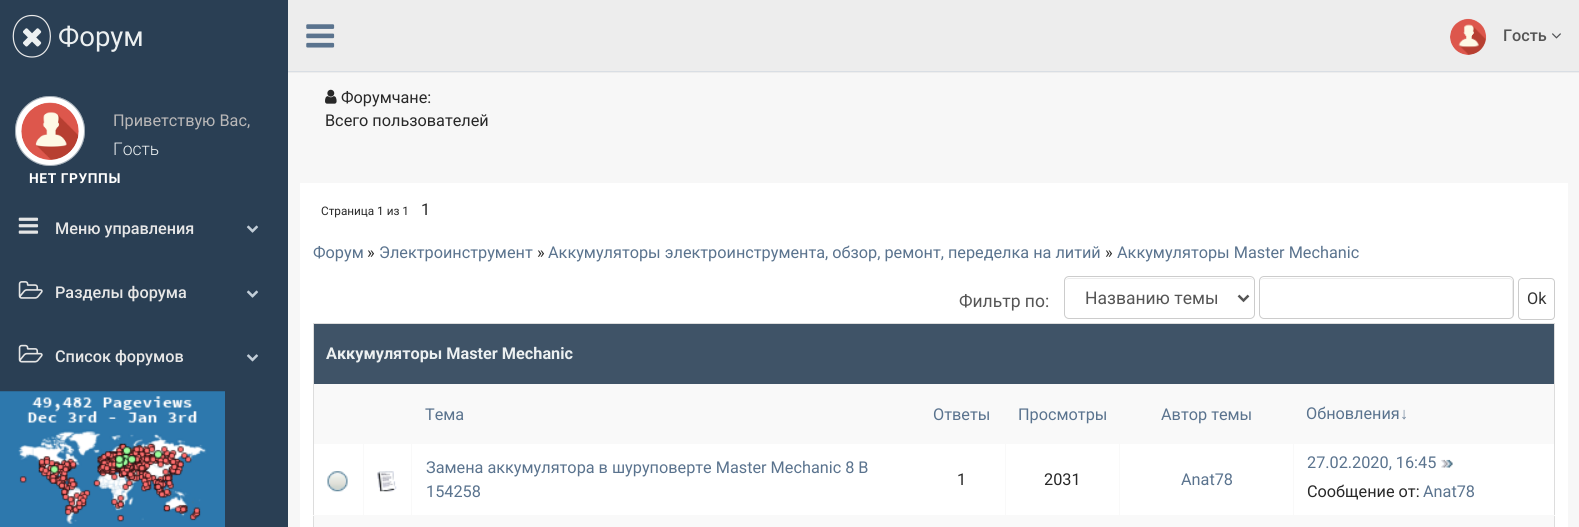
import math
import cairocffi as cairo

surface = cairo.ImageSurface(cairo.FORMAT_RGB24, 1579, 527)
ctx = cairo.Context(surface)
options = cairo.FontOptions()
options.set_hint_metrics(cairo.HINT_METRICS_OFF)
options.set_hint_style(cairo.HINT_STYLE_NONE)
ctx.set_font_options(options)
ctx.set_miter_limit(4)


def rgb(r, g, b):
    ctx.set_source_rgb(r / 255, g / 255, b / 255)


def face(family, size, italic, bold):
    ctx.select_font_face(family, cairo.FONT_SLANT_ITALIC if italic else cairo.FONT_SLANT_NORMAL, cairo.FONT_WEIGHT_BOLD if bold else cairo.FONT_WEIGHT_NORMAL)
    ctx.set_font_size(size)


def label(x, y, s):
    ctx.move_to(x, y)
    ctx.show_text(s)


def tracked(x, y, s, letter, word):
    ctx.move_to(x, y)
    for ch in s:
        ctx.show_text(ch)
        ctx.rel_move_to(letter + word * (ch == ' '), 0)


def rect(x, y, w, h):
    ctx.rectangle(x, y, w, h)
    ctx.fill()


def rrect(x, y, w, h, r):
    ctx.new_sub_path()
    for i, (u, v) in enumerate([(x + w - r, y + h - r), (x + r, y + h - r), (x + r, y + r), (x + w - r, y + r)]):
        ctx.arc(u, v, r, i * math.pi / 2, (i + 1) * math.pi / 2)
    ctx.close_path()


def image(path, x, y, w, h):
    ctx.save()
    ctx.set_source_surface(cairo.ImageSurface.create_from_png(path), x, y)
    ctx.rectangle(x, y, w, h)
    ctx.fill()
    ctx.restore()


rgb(42, 63, 84)
ctx.paint()
ctx.new_path()
ctx.move_to(32, 15.5)
ctx.curve_to(56.5, 15.5, 56.5, 57, 32, 57)
ctx.curve_to(7, 57, 7, 15.5, 32, 15.5)
ctx.close_path()
rgb(234, 234, 234)
ctx.set_line_width(1.2)
ctx.stroke()
image('image0.png', 23, 28, 19, 19)
face('Roboto', 27.5, 0, 0)
rgb(236, 240, 241)
label(58, 46, 'Форум')
rgb(255, 255, 255)
ctx.new_path()
ctx.arc(50, 131, 35, 0, 2 * math.pi)
ctx.fill()
ctx.arc(50, 131, 34.5, 0, 2 * math.pi)
ctx.set_source_rgba(0.204, 0.286, 0.369, 0.44)
ctx.set_line_width(1)
ctx.stroke()
image('image1.png', 21, 102, 58, 58)
face('Roboto', 16.25, 0, 0)
rgb(186, 184, 184)
label(113, 126, 'Приветствую Вас,')
face('Roboto Light', 17.5, 0, 0)
rgb(236, 240, 241)
label(113, 155, 'Гость')
face('Roboto', 13.75, 0, 1)
rgb(255, 255, 255)
tracked(29, 183, 'НЕТ ГРУППЫ', 0.6, 0)
image('image2.png', 18, 217, 21, 17)
face('Roboto Medium', 16.25, 0, 0)
rgb(231, 231, 231)
label(55, 234, 'Меню управления')
image('image3.png', 246, 225, 13, 8)
image('image4.png', 18, 281, 25, 18)
label(55, 298, 'Разделы форума')
image('image3.png', 246, 290, 13, 8)
image('image5.png', 18, 344, 25, 19)
label(55, 362, 'Список форумов')
image('image6.png', 246, 354, 13, 8)
image('image7.png', 0, 391, 225, 136)
rgb(237, 237, 237)
rect(288, 0, 1291, 73)
rgb(217, 222, 228)
rect(288, 71, 1291, 1)
image('image8.png', 306, 24, 29, 24)
image('image9.png', 1450, 18, 37, 37)
rgb(85, 85, 85)
label(1503, 41, 'Гость')
image('image10.png', 1552, 33, 9, 6)
rgb(247, 247, 247)
rect(288, 73, 1291, 454)
image('image11.png', 325, 89, 12, 15)
face('Roboto', 16.25, 0, 0)
rgb(40, 40, 40)
label(341, 103, 'Форумчане:')
label(325, 126, 'Всего пользователей')
rgb(255, 255, 255)
rect(300, 183, 1268, 344)
face('Roboto', 11.75, 0, 0)
rgb(40, 40, 40)
label(321, 215, 'Страница 1 из 1')
face('Roboto', 16.25, 0, 0)
label(421, 215, '1')
rgb(90, 115, 142)
label(313, 258, 'Форум')
rgb(40, 40, 40)
label(367, 258, '»')
rgb(90, 115, 142)
label(379, 258, 'Электроинструмент')
rgb(40, 40, 40)
label(537, 258, '»')
rgb(90, 115, 142)
label(548, 258, 'Аккумуляторы электроинструмента, обзор, ремонт, переделка на литий')
rgb(40, 40, 40)
label(1105, 258, '»')
rgb(90, 115, 142)
label(1117, 258, 'Аккумуляторы Master Mechanic')
face('Roboto', 17.5, 0, 0)
rgb(85, 85, 85)
label(959, 307, 'Фильтр по:')
rgb(236, 236, 236)
ctx.new_path()
ctx.move_to(1069, 279)
ctx.line_to(1250, 279)
ctx.curve_to(1252, 279, 1254, 280, 1254, 282)
ctx.curve_to(1254, 280, 1252, 278, 1250, 278)
ctx.line_to(1069, 278)
ctx.curve_to(1067, 278, 1065, 280, 1065, 282)
ctx.curve_to(1065, 280, 1067, 279, 1069, 279)
ctx.close_path()
ctx.fill()
rrect(1064.5, 276.5, 190, 42, 4.5)
rgb(204, 204, 204)
ctx.stroke()
ctx.new_path()
ctx.move_to(1238.5, 295.5)
ctx.line_to(1243.5, 300.5)
ctx.line_to(1248.5, 295.5)
rgb(85, 85, 85)
ctx.set_line_width(2.5)
ctx.stroke()
label(1085, 304, 'Названию темы')
rgb(236, 236, 236)
ctx.new_path()
ctx.move_to(1264, 279)
ctx.line_to(1509, 279)
ctx.curve_to(1511, 279, 1512, 280, 1512, 282)
ctx.line_to(1512, 317)
ctx.curve_to(1512, 316, 1513, 315, 1513, 314)
ctx.line_to(1513, 282)
ctx.curve_to(1513, 280, 1511, 278, 1509, 278)
ctx.line_to(1264, 278)
ctx.curve_to(1262, 278, 1260, 280, 1260, 282)
ctx.curve_to(1260, 280, 1262, 279, 1264, 279)
ctx.close_path()
ctx.fill()
rrect(1259.5, 276.5, 254, 42, 4.5)
rgb(204, 204, 204)
ctx.set_line_width(1)
ctx.stroke()
rrect(1518.5, 278.5, 36, 41, 3.5)
ctx.stroke()
face('Roboto', 16.25, 0, 0)
rgb(51, 51, 51)
label(1527, 304, 'Ok')
rgb(221, 221, 221)
rect(313, 323, 1242, 1)
rect(1554, 323, 1, 204)
rect(313, 323, 1, 204)
rgb(63, 83, 103)
rect(314, 324, 1240, 60)
face('Roboto', 16.25, 0, 1)
rgb(236, 240, 241)
label(326, 359, 'Аккумуляторы Master Mechanic')
rgb(249, 249, 249)
rect(314, 384, 1240, 60)
face('Roboto', 16.25, 0, 0)
rgb(90, 115, 142)
label(425, 420, 'Тема')
label(933, 420, 'Ответы')
label(1018, 420, 'Просмотры')
label(1161, 420, 'Автор темы')
label(1306, 419, 'Обновления')
face('Liberation Sans', 16.25, 0, 0)
rgb(115, 135, 158)
label(1400, 419, '↓')
rgb(249, 249, 249)
rect(1293, 515, 262, 1)
rect(1293, 444, 1, 72)
rect(1119, 515, 175, 1)
rect(1119, 444, 1, 72)
rect(1005, 515, 115, 1)
rect(1005, 444, 1, 72)
rect(411, 515, 595, 1)
rect(411, 444, 1, 72)
rect(363, 515, 50, 1)
rect(363, 444, 1, 72)
rect(313, 515, 51, 1)
image('image12.png', 327, 471, 21, 21)
image('image13.png', 377, 471, 20, 21)
face('Roboto', 16.25, 0, 0)
rgb(90, 115, 142)
label(426, 473, 'Замена аккумулятора в шуруповерте Master Mechanic 8 В')
label(426, 497, '154258')
rgb(40, 40, 40)
label(957, 485, '1')
label(1044, 485, '2031')
rgb(90, 115, 142)
label(1181, 485, 'Anat78')
label(1307, 468, '27.02.2020, 16:45')
image('image14.png', 1441, 459, 12, 9)
rgb(40, 40, 40)
label(1307, 497, 'Сообщение от:')
rgb(90, 115, 142)
label(1423, 497, 'Anat78')
rgb(249, 249, 249)
rect(314, 516, 1240, 11)
surface.write_to_png('render.png')
